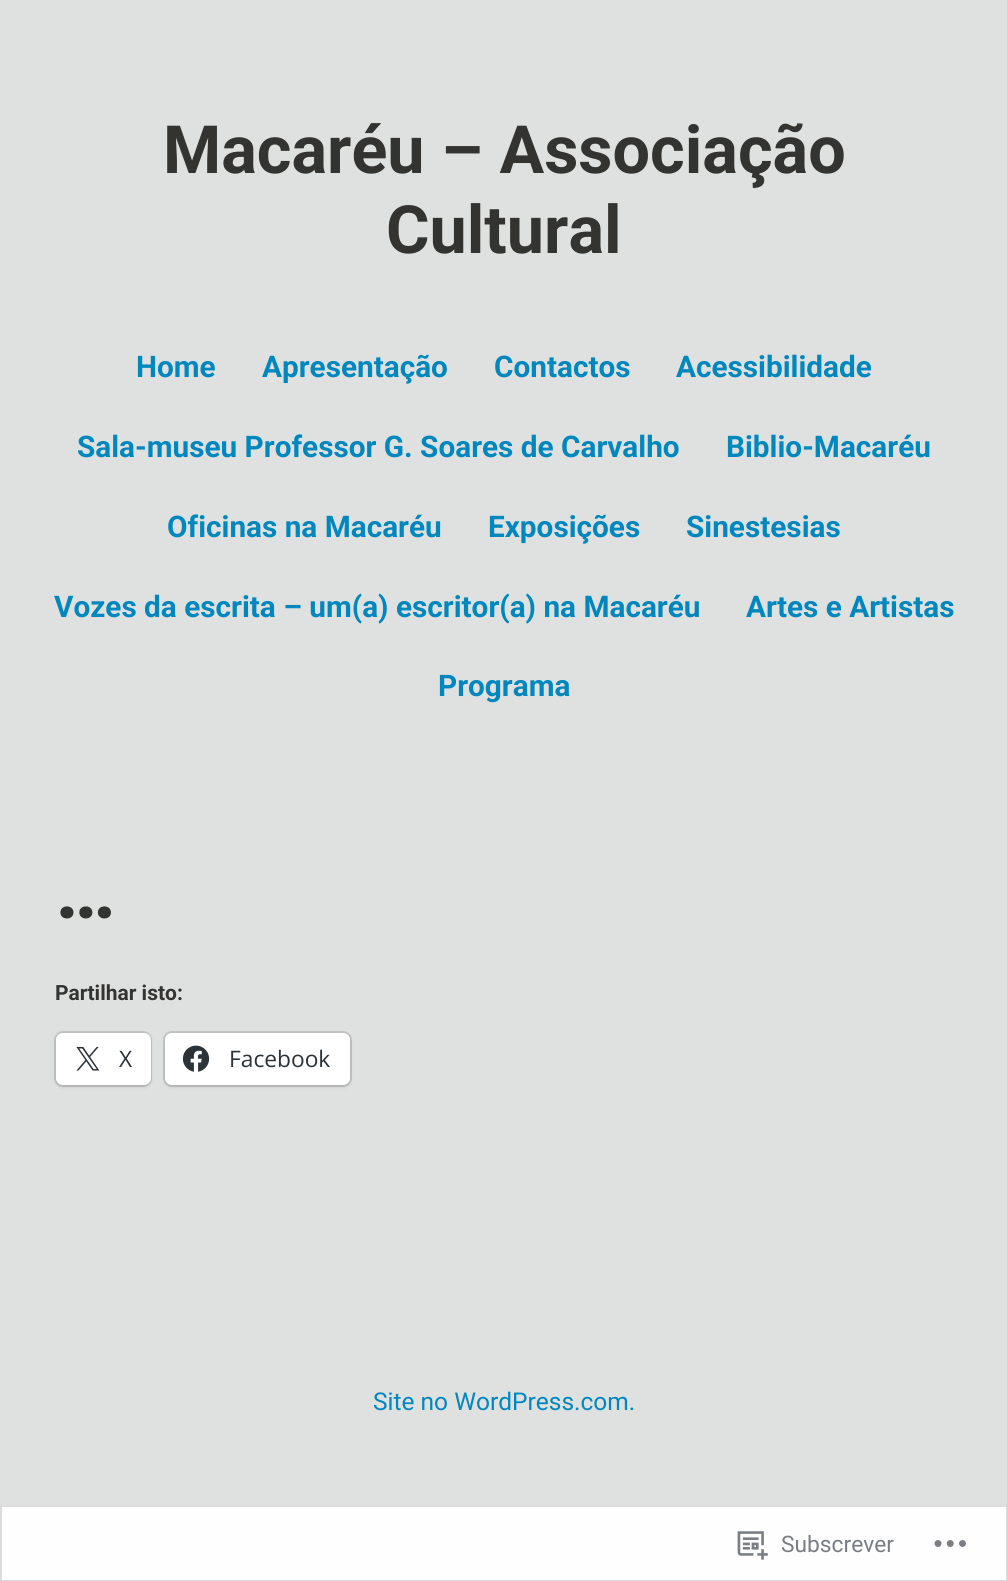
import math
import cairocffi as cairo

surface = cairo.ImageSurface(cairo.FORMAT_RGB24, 1007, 1581)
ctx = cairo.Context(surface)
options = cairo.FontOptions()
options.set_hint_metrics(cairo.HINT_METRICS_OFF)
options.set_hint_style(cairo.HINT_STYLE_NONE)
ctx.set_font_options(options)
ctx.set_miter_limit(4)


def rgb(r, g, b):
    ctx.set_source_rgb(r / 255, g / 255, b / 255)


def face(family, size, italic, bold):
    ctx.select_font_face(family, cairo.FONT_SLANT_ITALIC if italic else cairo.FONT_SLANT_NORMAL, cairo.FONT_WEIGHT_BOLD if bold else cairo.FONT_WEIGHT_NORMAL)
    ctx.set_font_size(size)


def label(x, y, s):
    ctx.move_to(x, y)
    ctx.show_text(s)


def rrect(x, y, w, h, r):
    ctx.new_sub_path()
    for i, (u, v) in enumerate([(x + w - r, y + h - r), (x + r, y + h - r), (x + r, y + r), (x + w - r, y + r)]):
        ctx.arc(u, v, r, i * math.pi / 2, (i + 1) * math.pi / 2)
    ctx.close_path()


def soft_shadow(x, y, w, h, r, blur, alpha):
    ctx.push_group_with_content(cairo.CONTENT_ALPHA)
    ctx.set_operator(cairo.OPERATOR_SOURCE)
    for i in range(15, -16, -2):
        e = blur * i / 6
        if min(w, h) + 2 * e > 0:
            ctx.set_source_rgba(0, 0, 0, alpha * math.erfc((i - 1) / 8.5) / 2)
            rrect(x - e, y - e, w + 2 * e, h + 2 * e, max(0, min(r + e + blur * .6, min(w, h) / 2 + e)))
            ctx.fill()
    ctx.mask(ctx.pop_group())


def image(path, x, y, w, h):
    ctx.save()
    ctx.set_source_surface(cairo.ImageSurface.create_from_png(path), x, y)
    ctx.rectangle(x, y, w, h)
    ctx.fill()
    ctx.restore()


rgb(223, 225, 224)
ctx.paint()
face('Roboto', 66.5, 0, 1)
rgb(51, 51, 50)
label(163, 173, 'Macaréu – Associação')
label(386, 253, 'Cultural')
face('Roboto', 29.75, 0, 1)
rgb(0, 135, 190)
label(136, 377, 'Home')
label(262, 377, 'Apresentação')
label(494, 377, 'Contactos')
label(676, 377, 'Acessibilidade')
label(77, 457, 'Sala-museu Professor G. Soares de Carvalho')
label(726, 457, 'Biblio-Macaréu')
label(167, 537, 'Oficinas na Macaréu')
label(488, 537, 'Exposições')
label(686, 537, 'Sinestesias')
label(54, 617, 'Vozes da escrita – um(a) escritor(a) na Macaréu')
label(746, 617, 'Artes e Artistas')
label(438, 696, 'Programa')
face('Roboto', 82, 0, 1)
rgb(51, 51, 50)
label(55, 918, '…')
face('Roboto', 21, 0, 1)
label(55, 1000, 'Partilhar isto:')
rrect(55, 1032, 96, 54, 8)
rgb(196, 198, 197)
ctx.stroke()
rgb(0, 0, 0)
soft_shadow(56, 1034, 95, 53, 7, 2, 0.12)
rgb(255, 255, 255)
rrect(56, 1033, 95, 52, 7)
ctx.fill()
image('image0.png', 76, 1046, 24, 25)
face('Open Sans', 22.75, 0, 0)
rgb(44, 51, 56)
label(119, 1067, 'X')
rrect(164, 1032, 187, 54, 8)
rgb(196, 198, 197)
ctx.stroke()
rgb(0, 0, 0)
soft_shadow(165, 1034, 185, 53, 7, 2, 0.12)
rgb(255, 255, 255)
rrect(165, 1033, 185, 52, 7)
ctx.fill()
image('image1.png', 182, 1045, 28, 27)
rgb(44, 51, 56)
label(229, 1067, 'Facebook')
face('Roboto', 24.5, 0, 0)
rgb(0, 135, 190)
label(373, 1410, 'Site no WordPress.com.')
rgb(254, 254, 254)
ctx.rectangle(1, 1506, 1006, 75)
ctx.fill_preserve()
rgb(220, 220, 222)
ctx.stroke()
image('image2.png', 737, 1531, 31, 29)
face('Roboto', 22.75, 0, 0)
rgb(122, 126, 132)
label(781, 1552, 'Subscrever')
image('image3.png', 934, 1540, 32, 7)
surface.write_to_png('render.png')
